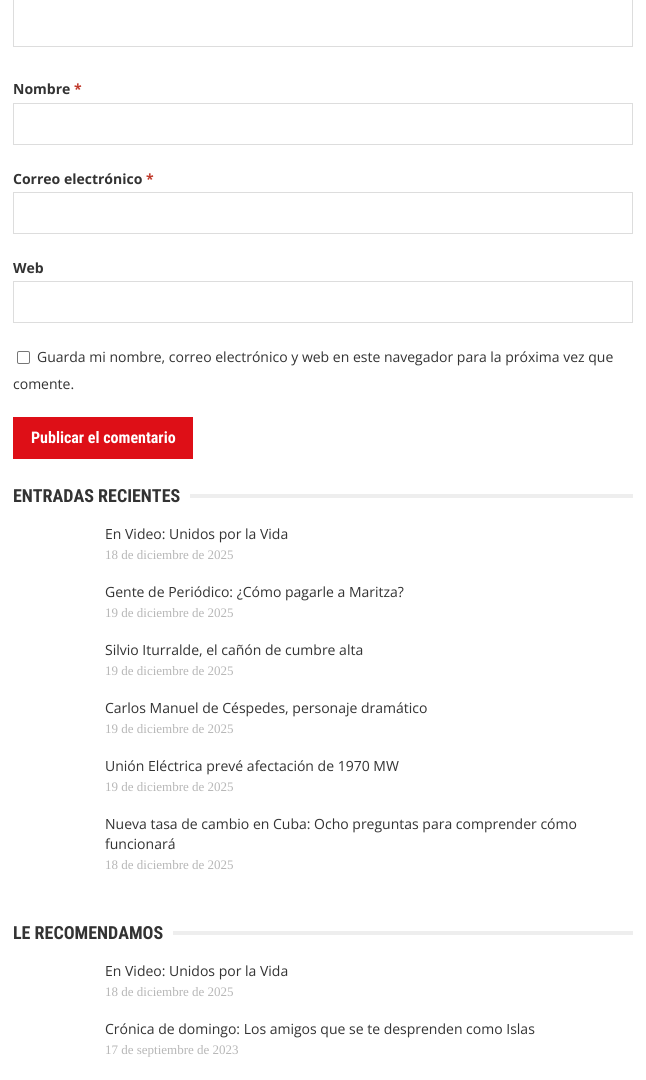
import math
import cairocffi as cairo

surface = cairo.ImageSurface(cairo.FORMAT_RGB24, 646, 1080)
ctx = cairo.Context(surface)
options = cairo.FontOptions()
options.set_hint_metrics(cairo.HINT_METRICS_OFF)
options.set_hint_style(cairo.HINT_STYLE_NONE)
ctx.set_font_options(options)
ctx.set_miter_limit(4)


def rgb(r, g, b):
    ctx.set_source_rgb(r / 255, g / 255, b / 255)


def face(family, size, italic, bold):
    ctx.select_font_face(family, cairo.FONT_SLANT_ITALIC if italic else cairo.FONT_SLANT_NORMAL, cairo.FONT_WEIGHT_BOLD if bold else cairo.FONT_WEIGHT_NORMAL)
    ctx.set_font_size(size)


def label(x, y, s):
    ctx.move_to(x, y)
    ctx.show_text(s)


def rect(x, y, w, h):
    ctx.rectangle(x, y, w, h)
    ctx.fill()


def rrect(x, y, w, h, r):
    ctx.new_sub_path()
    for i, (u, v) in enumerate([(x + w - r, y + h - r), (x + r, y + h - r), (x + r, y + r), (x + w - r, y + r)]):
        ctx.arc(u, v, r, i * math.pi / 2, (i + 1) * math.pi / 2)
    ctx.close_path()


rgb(255, 255, 255)
ctx.paint()
ctx.rectangle(13.5, -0.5, 619, 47)
rgb(221, 221, 221)
ctx.set_line_width(1)
ctx.stroke()
face('Open Sans', 14, 0, 1)
rgb(51, 51, 51)
label(13, 94, 'Nombre')
rgb(192, 57, 43)
label(74, 94, '*')
ctx.rectangle(13.5, 103.5, 619, 41)
rgb(221, 221, 221)
ctx.stroke()
rgb(51, 51, 51)
label(13, 184, 'Correo electrónico')
rgb(192, 57, 43)
label(146, 184, '*')
ctx.rectangle(13.5, 192.5, 619, 41)
rgb(221, 221, 221)
ctx.stroke()
rgb(51, 51, 51)
label(13, 273, 'Web')
ctx.rectangle(13.5, 281.5, 619, 41)
rgb(221, 221, 221)
ctx.stroke()
rrect(17.5, 351.5, 12, 12, 1.5)
rgb(118, 118, 118)
ctx.stroke()
face('Open Sans', 14, 0, 0)
rgb(51, 51, 51)
label(37, 362, 'Guarda mi nombre, correo electrónico y web en este navegador para la próxima vez que')
label(13, 389, 'comente.')
rgb(222, 15, 23)
rect(13, 417, 180, 42)
face('Roboto Condensed', 16, 0, 1)
rgb(255, 255, 255)
label(31, 443, 'Publicar el comentario')
face('Roboto Condensed', 18, 0, 1)
rgb(51, 51, 51)
label(13, 502, 'ENTRADAS RECIENTES')
rgb(238, 238, 238)
rect(190, 494, 443, 4)
face('Open Sans', 14, 0, 0)
rgb(51, 51, 51)
label(105, 539, 'En Video: Unidos por la Vida')
face('Liberation Serif', 13, 0, 0)
rgb(183, 183, 183)
label(105, 559, '18 de diciembre de 2025')
face('Open Sans', 14, 0, 0)
rgb(51, 51, 51)
label(105, 597, 'Gente de Periódico: ¿Cómo pagarle a Maritza?')
face('Liberation Serif', 13, 0, 0)
rgb(183, 183, 183)
label(105, 617, '19 de diciembre de 2025')
face('Open Sans', 14, 0, 0)
rgb(51, 51, 51)
label(105, 655, 'Silvio Iturralde, el cañón de cumbre alta')
face('Liberation Serif', 13, 0, 0)
rgb(183, 183, 183)
label(105, 675, '19 de diciembre de 2025')
face('Open Sans', 14, 0, 0)
rgb(51, 51, 51)
label(105, 713, 'Carlos Manuel de Céspedes, personaje dramático')
face('Liberation Serif', 13, 0, 0)
rgb(183, 183, 183)
label(105, 733, '19 de diciembre de 2025')
face('Open Sans', 14, 0, 0)
rgb(51, 51, 51)
label(105, 771, 'Unión Eléctrica prevé afectación de 1970 MW')
face('Liberation Serif', 13, 0, 0)
rgb(183, 183, 183)
label(105, 791, '19 de diciembre de 2025')
face('Open Sans', 14, 0, 0)
rgb(51, 51, 51)
label(105, 829, 'Nueva tasa de cambio en Cuba: Ocho preguntas para comprender cómo')
label(105, 849, 'funcionará')
face('Liberation Serif', 13, 0, 0)
rgb(183, 183, 183)
label(105, 869, '18 de diciembre de 2025')
face('Roboto Condensed', 18, 0, 1)
rgb(51, 51, 51)
label(13, 939, 'LE RECOMENDAMOS')
rgb(238, 238, 238)
rect(173, 931, 460, 4)
face('Open Sans', 14, 0, 0)
rgb(51, 51, 51)
label(105, 976, 'En Video: Unidos por la Vida')
face('Liberation Serif', 13, 0, 0)
rgb(183, 183, 183)
label(105, 996, '18 de diciembre de 2025')
face('Open Sans', 14, 0, 0)
rgb(51, 51, 51)
label(105, 1034, 'Crónica de domingo: Los amigos que se te desprenden como Islas')
face('Liberation Serif', 13, 0, 0)
rgb(183, 183, 183)
label(105, 1054, '17 de septiembre de 2023')
surface.write_to_png('render.png')
